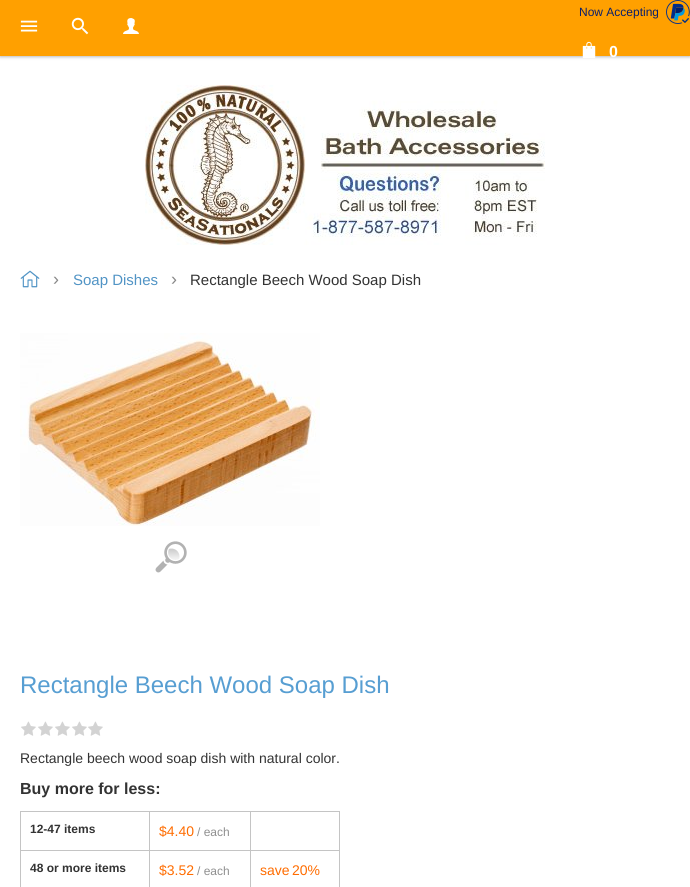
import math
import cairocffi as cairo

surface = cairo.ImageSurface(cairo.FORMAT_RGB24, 690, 887)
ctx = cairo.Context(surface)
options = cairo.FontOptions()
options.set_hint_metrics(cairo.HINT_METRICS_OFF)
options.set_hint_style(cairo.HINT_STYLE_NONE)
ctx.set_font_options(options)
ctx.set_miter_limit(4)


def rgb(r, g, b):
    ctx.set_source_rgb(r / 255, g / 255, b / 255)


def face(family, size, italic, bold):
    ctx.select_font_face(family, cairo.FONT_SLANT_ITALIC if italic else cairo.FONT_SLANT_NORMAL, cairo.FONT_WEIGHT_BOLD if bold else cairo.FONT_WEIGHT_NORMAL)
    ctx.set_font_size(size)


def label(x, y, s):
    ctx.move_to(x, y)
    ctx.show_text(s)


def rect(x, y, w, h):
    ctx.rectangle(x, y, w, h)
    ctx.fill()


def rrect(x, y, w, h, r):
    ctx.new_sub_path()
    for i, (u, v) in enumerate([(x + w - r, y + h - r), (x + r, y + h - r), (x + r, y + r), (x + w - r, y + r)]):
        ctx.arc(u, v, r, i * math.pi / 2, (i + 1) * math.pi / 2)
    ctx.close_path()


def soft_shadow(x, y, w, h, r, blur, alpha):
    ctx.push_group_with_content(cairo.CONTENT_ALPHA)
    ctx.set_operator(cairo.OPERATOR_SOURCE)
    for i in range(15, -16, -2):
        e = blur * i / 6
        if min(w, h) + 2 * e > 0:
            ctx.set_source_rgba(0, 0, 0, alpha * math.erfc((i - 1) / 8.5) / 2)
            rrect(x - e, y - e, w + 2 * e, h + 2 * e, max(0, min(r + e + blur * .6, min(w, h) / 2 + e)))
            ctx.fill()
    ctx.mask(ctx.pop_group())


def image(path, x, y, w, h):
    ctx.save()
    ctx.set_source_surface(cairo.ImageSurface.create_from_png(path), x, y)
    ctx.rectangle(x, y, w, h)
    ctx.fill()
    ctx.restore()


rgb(255, 255, 255)
ctx.paint()
rgb(186, 186, 186)
soft_shadow(0, 1, 690, 56, 0, 1.5, 1)
rgb(255, 160, 0)
rect(0, 0, 690, 56)
image('image0.png', 20, 20, 18, 12)
image('image1.png', 71, 17, 18, 18)
image('image2.png', 123, 18, 16, 16)
face('Liberation Sans', 12, 0, 0)
rgb(10, 31, 107)
label(579, 16, 'Now Accepting')
image('image3.png', 666, 0, 24, 24)
image('image4.png', 582, 41, 14, 17)
face('Liberation Sans', 16, 0, 1)
rgb(255, 255, 255)
label(609, 57, '0')
image('image5.png', 145, 85, 400, 160)
image('image6.png', 20, 270, 20, 18)
face('Liberation Sans', 18, 0, 0)
rgb(136, 136, 136)
label(53, 285, '›')
face('Liberation Sans', 15, 0, 0)
rgb(81, 148, 197)
label(73, 285, 'Soap Dishes')
face('Liberation Sans', 18, 0, 0)
rgb(136, 136, 136)
label(171, 285, '›')
face('Liberation Sans', 15, 0, 0)
rgb(51, 51, 51)
label(190, 285, 'Rectangle Beech Wood Soap Dish')
image('image7.png', 20, 333, 300, 193)
image('image8.png', 155, 541, 32, 32)
face('Liberation Sans', 24, 0, 0)
rgb(87, 158, 210)
label(20, 693, 'Rectangle Beech Wood Soap Dish')
image('image9.png', 21, 721, 15, 15)
image('image9.png', 38, 721, 15, 15)
image('image9.png', 55, 721, 15, 15)
image('image9.png', 72, 721, 15, 15)
image('image9.png', 88, 721, 15, 15)
face('Liberation Sans', 14, 0, 0)
rgb(51, 51, 51)
label(20, 763, 'Rectangle beech wood soap dish with natural color.')
face('Liberation Sans', 16, 0, 1)
label(20, 794, 'Buy more for less:')
rgb(196, 196, 196)
rect(250, 811, 90, 1)
rect(250, 850, 90, 1)
rect(250, 850, 1, 37)
rect(149, 850, 102, 1)
rect(250, 811, 1, 40)
rect(149, 811, 102, 1)
rect(149, 850, 1, 37)
rect(20, 850, 130, 1)
rect(149, 811, 1, 40)
rect(20, 811, 130, 1)
rect(20, 850, 1, 37)
rect(20, 811, 1, 40)
face('Liberation Sans', 12, 0, 1)
rgb(51, 51, 51)
label(30, 833, '12-47 items')
face('Liberation Sans', 14, 0, 0)
rgb(255, 108, 0)
label(159, 836, '$4.40')
face('Liberation Sans', 12, 0, 0)
rgb(143, 143, 143)
label(197, 836, '/ each')
rgb(196, 196, 196)
rect(339, 850, 1, 37)
rect(339, 811, 1, 40)
face('Liberation Sans', 12, 0, 1)
rgb(51, 51, 51)
label(30, 872, '48 or more items')
face('Liberation Sans', 14, 0, 0)
rgb(255, 108, 0)
label(159, 875, '$3.52')
face('Liberation Sans', 12, 0, 0)
rgb(143, 143, 143)
label(197, 875, '/ each')
face('Liberation Sans', 14, 0, 0)
rgb(255, 108, 0)
label(260, 875, 'save')
label(292, 875, '20%')
surface.write_to_png('render.png')
